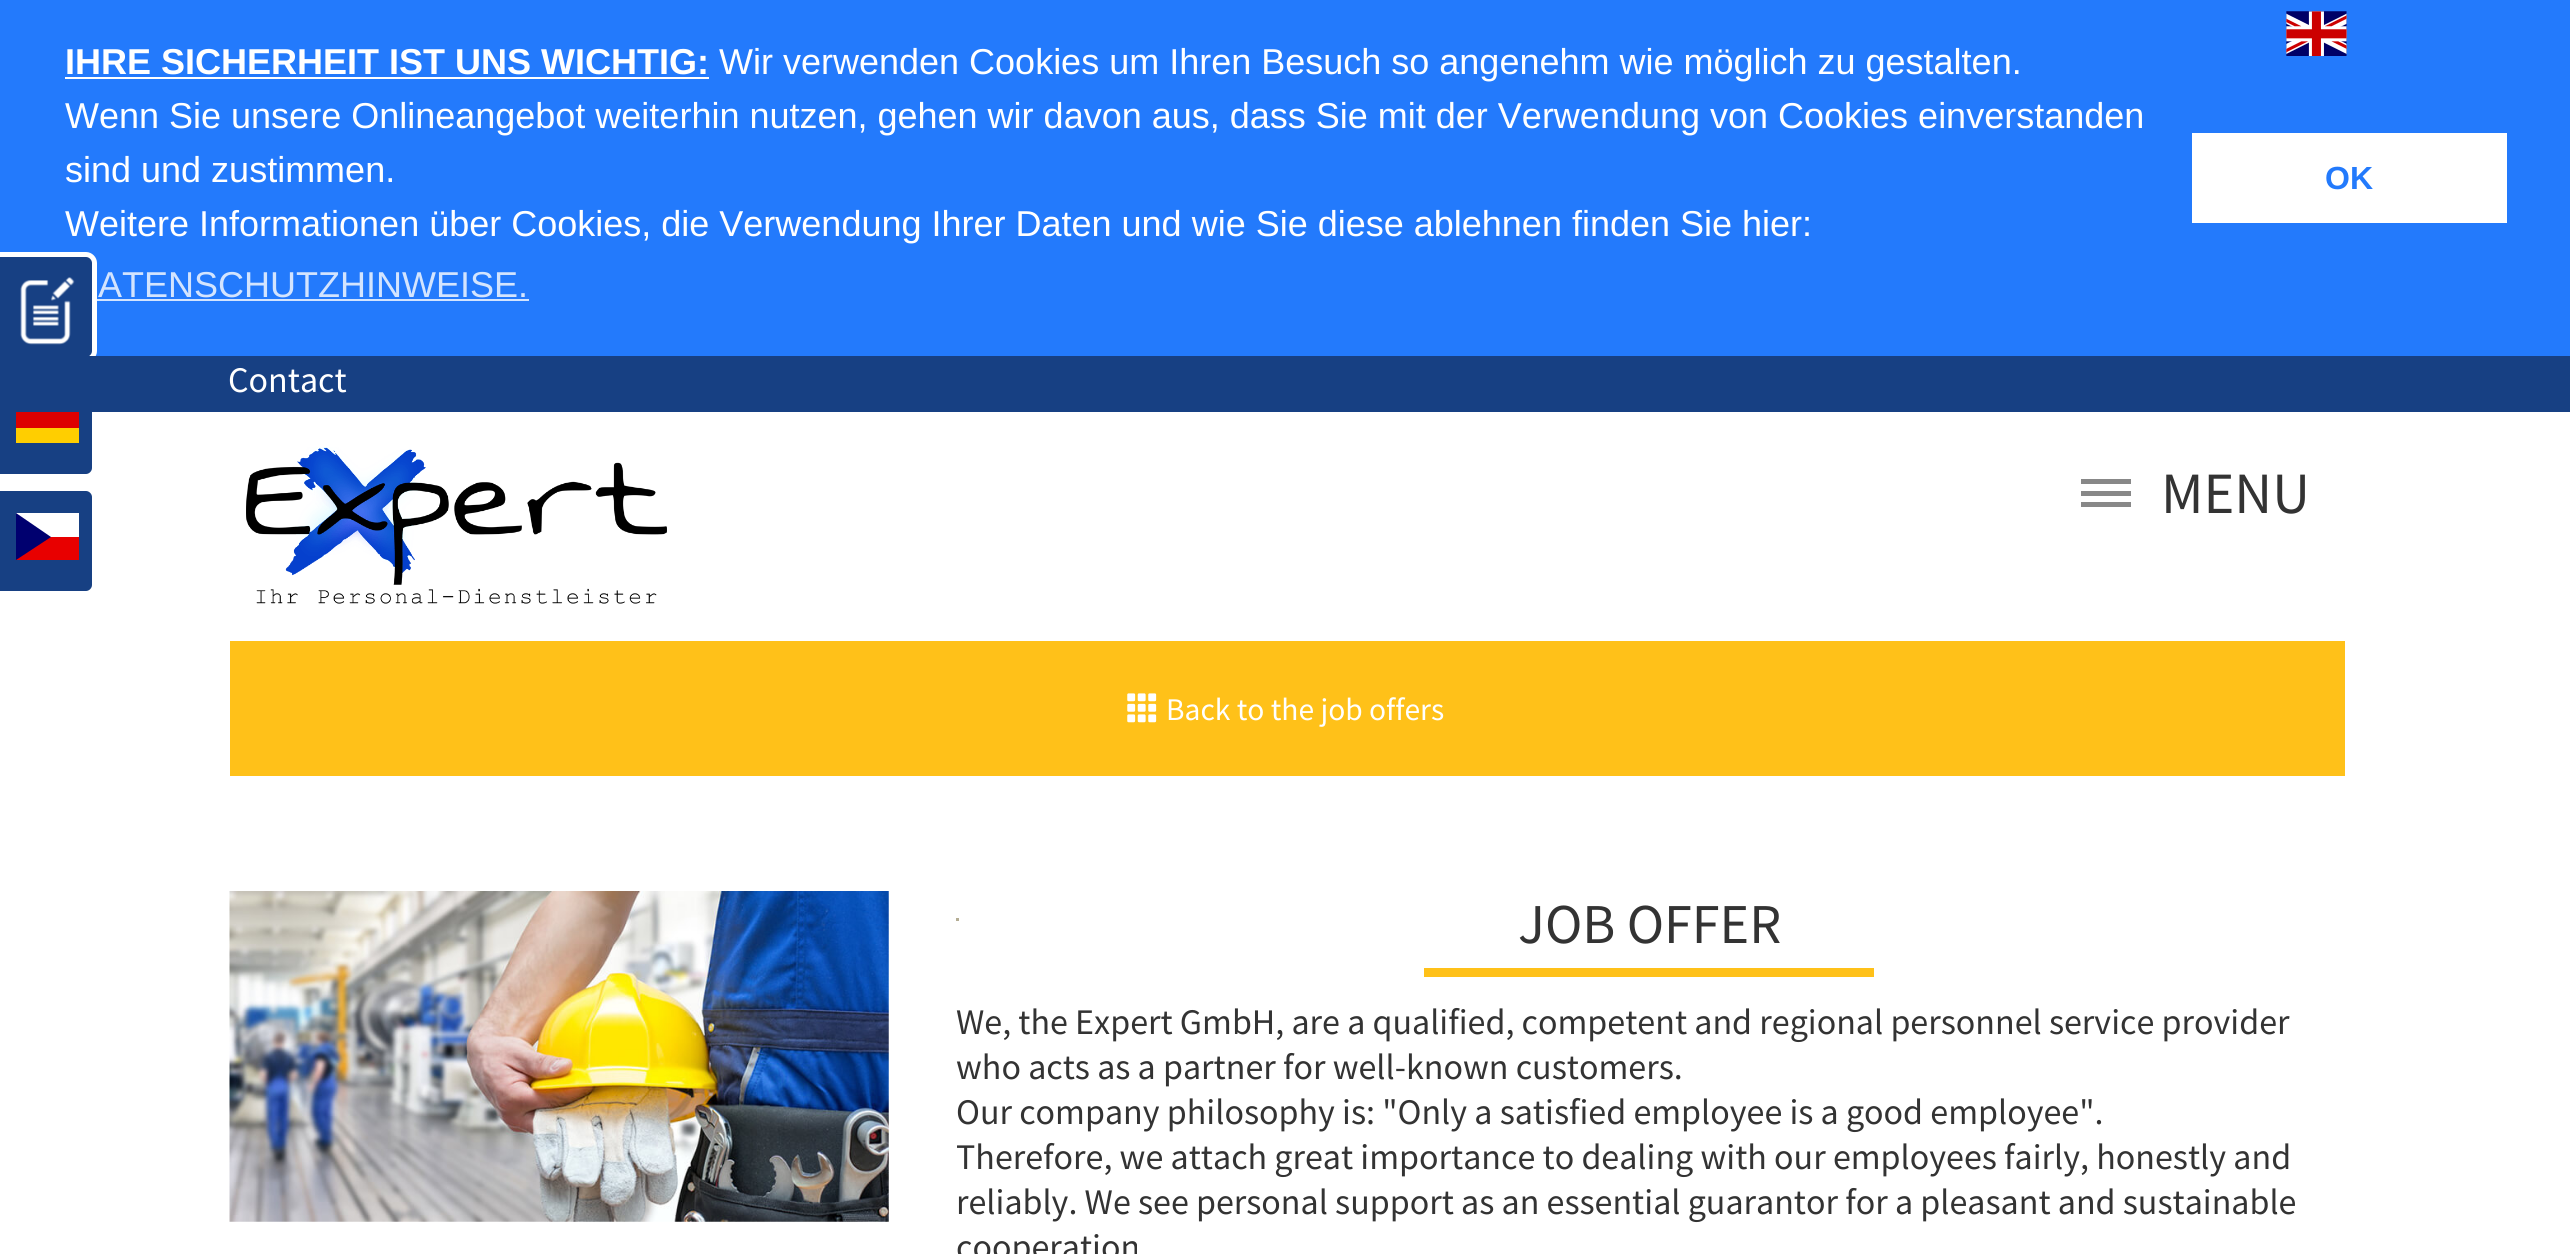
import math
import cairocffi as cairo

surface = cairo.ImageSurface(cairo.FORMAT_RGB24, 2570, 1254)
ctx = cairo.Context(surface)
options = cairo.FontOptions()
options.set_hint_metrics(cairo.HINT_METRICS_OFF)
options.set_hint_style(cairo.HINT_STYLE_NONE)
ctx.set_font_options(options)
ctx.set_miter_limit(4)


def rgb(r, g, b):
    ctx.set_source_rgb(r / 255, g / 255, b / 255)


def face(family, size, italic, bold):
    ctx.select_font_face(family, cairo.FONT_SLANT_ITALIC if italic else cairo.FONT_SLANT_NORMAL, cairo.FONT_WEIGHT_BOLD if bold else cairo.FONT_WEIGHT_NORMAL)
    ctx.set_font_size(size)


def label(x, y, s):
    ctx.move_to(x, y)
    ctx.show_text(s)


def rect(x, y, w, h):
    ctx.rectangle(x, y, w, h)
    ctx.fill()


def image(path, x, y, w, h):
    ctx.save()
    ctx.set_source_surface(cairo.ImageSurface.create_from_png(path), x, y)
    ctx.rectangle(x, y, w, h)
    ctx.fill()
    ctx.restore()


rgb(255, 255, 255)
ctx.paint()
rgb(35, 122, 252)
rect(0, 0, 2570, 356)
face('Liberation Sans', 36, 0, 1)
rgb(255, 255, 255)
label(65, 74, 'IHRE SICHERHEIT IST UNS WICHTIG:')
rect(65, 77, 644, 2)
face('Liberation Sans', 36, 0, 0)
label(719, 74, 'Wir verwenden Cookies um Ihren Besuch so angenehm wie möglich zu gestalten.')
label(65, 128, 'Wenn Sie unsere Onlineangebot weiterhin nutzen, gehen wir davon aus, dass Sie mit der Verwendung von Cookies einverstanden')
label(65, 182, 'sind und zustimmen.')
label(65, 236, 'Weitere Informationen über Cookies, die Verwendung Ihrer Daten und wie Sie diese ablehnen finden Sie hier:')
rgb(211, 228, 254)
label(98, 297, 'ATENSCHUTZHINWEISE.')
rect(97, 299, 432, 2)
rgb(255, 255, 255)
rect(2192, 133, 315, 90)
face('Liberation Sans', 32, 0, 1)
rgb(35, 122, 252)
label(2325, 189, 'OK')
rgb(23, 64, 131)
ctx.new_path()
ctx.move_to(-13.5, 254.5)
ctx.line_to(86, 254.5)
ctx.curve_to(90.5, 254.5, 94.5, 258.5, 94.5, 263)
ctx.line_to(94.5, 351)
ctx.curve_to(94.5, 355.5, 90.5, 359.5, 86, 359.5)
ctx.line_to(-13.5, 359.5)
ctx.close_path()
ctx.fill_preserve()
rgb(255, 255, 255)
ctx.set_line_width(5)
ctx.stroke()
image('image0.png', 20, 277, 55, 68)
rgb(23, 64, 131)
ctx.new_path()
ctx.move_to(-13.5, 371.5)
ctx.line_to(86, 371.5)
ctx.curve_to(90.5, 371.5, 94.5, 375.5, 94.5, 380)
ctx.line_to(94.5, 468)
ctx.curve_to(94.5, 472.5, 90.5, 476.5, 86, 476.5)
ctx.line_to(-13.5, 476.5)
ctx.close_path()
ctx.fill_preserve()
rgb(255, 255, 255)
ctx.stroke()
rgb(221, 0, 0)
rect(16, 412, 63, 16)
rgb(255, 206, 0)
rect(16, 428, 63, 15)
rgb(23, 64, 131)
ctx.new_path()
ctx.move_to(-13.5, 488.5)
ctx.line_to(86, 488.5)
ctx.curve_to(90.5, 488.5, 94.5, 492.5, 94.5, 497)
ctx.line_to(94.5, 585)
ctx.curve_to(94.5, 589.5, 90.5, 593.5, 86, 593.5)
ctx.line_to(-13.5, 593.5)
ctx.close_path()
ctx.fill_preserve()
rgb(255, 255, 255)
ctx.stroke()
rect(16, 513, 63, 24)
rgb(232, 0, 0)
rect(16, 537, 63, 23)
rgb(0, 0, 111)
ctx.set_fill_rule(cairo.FILL_RULE_EVEN_ODD)
ctx.new_path()
ctx.move_to(16, 513)
ctx.line_to(51, 537)
ctx.line_to(16, 560)
ctx.close_path()
ctx.fill()
rgb(23, 64, 131)
rect(0, 356, 2570, 56)
image('image1.png', 2286, 11, 61, 45)
face('Source Sans Pro', 36, 0, 0)
rgb(255, 255, 255)
label(228, 392, 'Contact')
image('image2.png', 246, 447, 421, 157)
rgb(136, 136, 136)
rect(2081, 479, 50, 5)
rect(2081, 491, 50, 5)
rect(2081, 502, 50, 5)
face('Source Sans Pro', 58.5, 0, 0)
rgb(51, 51, 51)
label(2161, 513, 'MENU')
rgb(255, 193, 25)
rect(230, 641, 2115, 135)
image('image3.png', 1127, 693, 30, 30)
face('Source Sans Pro', 31.5, 0, 0)
rgb(255, 255, 255)
label(1166, 720, 'Back to the job offers')
image('image4.png', 229, 891, 660, 331)
rgb(180, 173, 148)
rect(956, 918, 3, 3)
face('Source Sans Pro', 56.25, 0, 0)
rgb(51, 51, 51)
label(1518, 943, 'JOB OFFER')
rgb(255, 193, 25)
rect(1424, 968, 450, 9)
face('Source Sans Pro', 36, 0, 0)
rgb(51, 51, 51)
label(956, 1034, 'We, the Expert GmbH, are a qualified, competent and regional personnel service provider')
label(956, 1079, 'who acts as a partner for well-known customers.')
label(956, 1124, 'Our company philosophy is: "Only a satisfied employee is a good employee".')
label(956, 1169, 'Therefore, we attach great importance to dealing with our employees fairly, honestly and')
label(956, 1214, 'reliably. We see personal support as an essential guarantor for a pleasant and sustainable')
label(956, 1259, 'cooperation')
surface.write_to_png('render.png')
